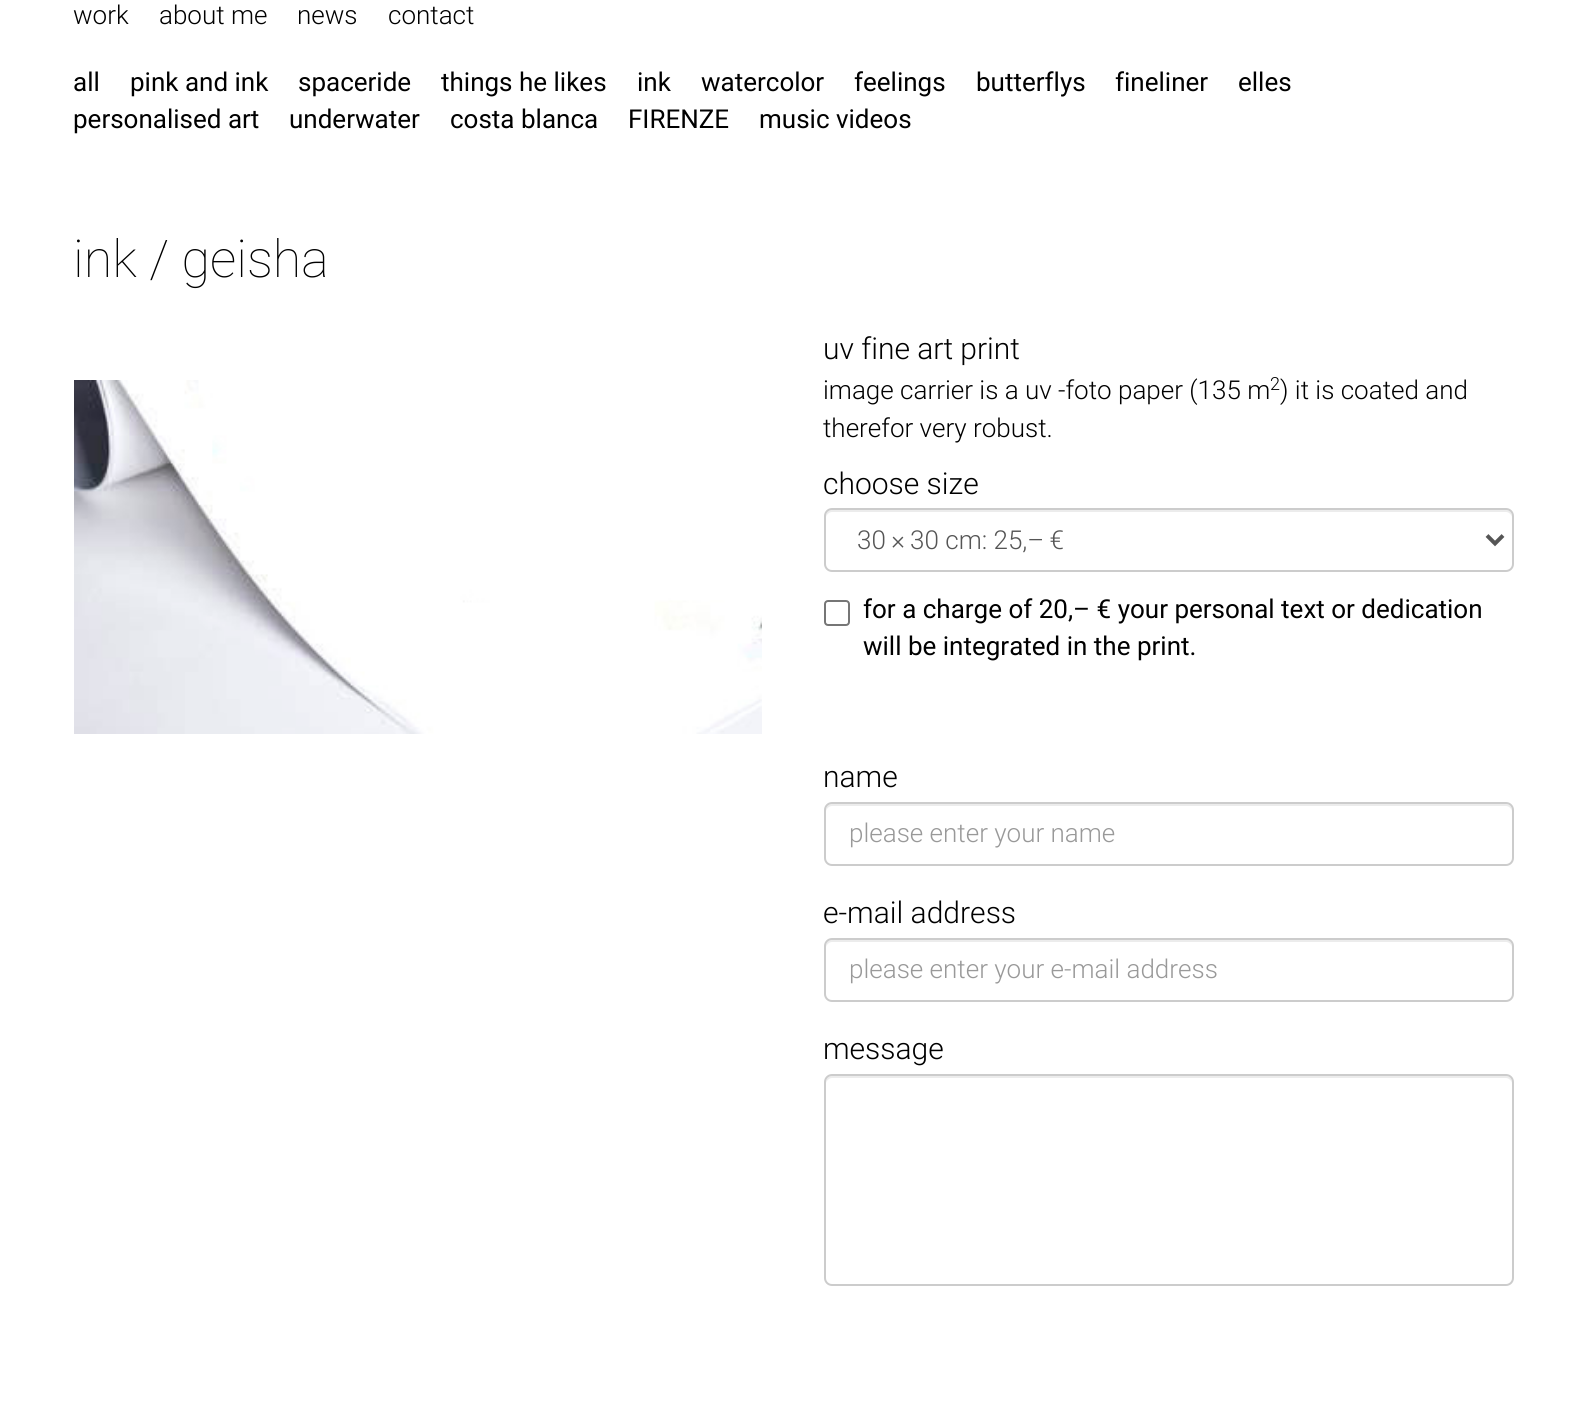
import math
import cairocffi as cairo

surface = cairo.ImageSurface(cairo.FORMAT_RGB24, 1585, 1428)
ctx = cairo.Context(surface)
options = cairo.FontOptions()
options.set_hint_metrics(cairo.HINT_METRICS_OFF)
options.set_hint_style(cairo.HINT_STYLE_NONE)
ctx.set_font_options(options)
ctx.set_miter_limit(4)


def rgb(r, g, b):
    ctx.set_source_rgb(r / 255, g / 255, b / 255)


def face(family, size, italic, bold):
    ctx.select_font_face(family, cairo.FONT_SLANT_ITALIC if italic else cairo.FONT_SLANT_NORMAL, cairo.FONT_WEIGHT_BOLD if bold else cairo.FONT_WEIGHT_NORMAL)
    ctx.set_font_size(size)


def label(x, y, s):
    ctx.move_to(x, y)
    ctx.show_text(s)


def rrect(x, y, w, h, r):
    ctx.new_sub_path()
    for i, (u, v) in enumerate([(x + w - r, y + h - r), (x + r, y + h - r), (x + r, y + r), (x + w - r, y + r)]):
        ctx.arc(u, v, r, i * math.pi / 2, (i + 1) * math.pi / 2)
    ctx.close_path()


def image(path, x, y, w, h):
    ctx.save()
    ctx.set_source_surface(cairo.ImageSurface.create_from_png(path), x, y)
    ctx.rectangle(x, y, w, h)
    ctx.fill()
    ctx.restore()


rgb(255, 255, 255)
ctx.paint()
face('Roboto Light', 26, 0, 0)
rgb(0, 0, 0)
label(73, 24, 'work')
label(159, 24, 'about me')
label(297, 24, 'news')
label(388, 24, 'contact')
face('Roboto', 26, 0, 0)
label(73, 91, 'all')
label(130, 91, 'pink and ink')
label(298, 91, 'spaceride')
label(441, 91, 'things he likes')
label(637, 91, 'ink')
label(701, 91, 'watercolor')
label(854, 91, 'feelings')
label(976, 91, 'butterflys')
label(1115, 91, 'fineliner')
label(1238, 91, 'elles')
label(73, 128, 'personalised art')
label(289, 128, 'underwater')
label(450, 128, 'costa blanca')
label(628, 128, 'FIRENZE')
label(759, 128, 'music videos')
face('Roboto Thin', 52, 0, 0)
label(73, 277, 'ink / geisha')
image('image0.png', 74, 380, 688, 354)
face('Roboto Light', 30, 0, 0)
label(823, 359, 'uv fine art print')
face('Roboto Light', 26, 0, 0)
label(823, 399, 'image carrier is a uv -foto paper (135 m')
face('Roboto Light', 18, 0, 0)
label(1270, 390, '2')
face('Roboto Light', 26, 0, 0)
label(1280, 399, ') it is coated and')
label(823, 437, 'therefor very robust.')
face('Roboto Light', 30, 0, 0)
label(823, 494, 'choose size')
rgb(236, 236, 236)
ctx.new_path()
ctx.move_to(832, 512)
ctx.line_to(1506, 512)
ctx.curve_to(1509, 512, 1512, 515, 1512, 518)
ctx.curve_to(1512, 514, 1511, 510, 1506, 510)
ctx.line_to(832, 510)
ctx.curve_to(827, 510, 826, 514, 826, 518)
ctx.curve_to(826, 515, 829, 512, 832, 512)
ctx.close_path()
ctx.fill()
rrect(825, 509, 688, 62, 7)
rgb(204, 204, 204)
ctx.stroke()
ctx.new_path()
ctx.move_to(1487, 535.5)
ctx.line_to(1495, 543.5)
ctx.line_to(1503, 535.5)
rgb(85, 85, 85)
ctx.set_line_width(4)
ctx.stroke()
face('Roboto Light', 26, 0, 0)
label(857, 549, '30 × 30 cm: 25,– €')
rrect(825, 601, 24, 24, 3)
rgb(118, 118, 118)
ctx.set_line_width(2)
ctx.stroke()
face('Roboto', 26, 0, 0)
rgb(0, 0, 0)
label(863, 618, 'for a charge of 20,– € your personal text or dedication')
label(863, 655, 'will be integrated in the print.')
face('Roboto Light', 30, 0, 0)
label(823, 787, 'name')
rgb(236, 236, 236)
ctx.new_path()
ctx.move_to(832, 806)
ctx.line_to(1506, 806)
ctx.curve_to(1509, 806, 1512, 809, 1512, 812)
ctx.curve_to(1512, 808, 1511, 804, 1506, 804)
ctx.line_to(832, 804)
ctx.curve_to(827, 804, 826, 808, 826, 812)
ctx.curve_to(826, 809, 829, 806, 832, 806)
ctx.close_path()
ctx.fill()
rrect(825, 803, 688, 62, 7)
rgb(204, 204, 204)
ctx.stroke()
face('Roboto Light', 26, 0, 0)
rgb(153, 153, 153)
label(849, 842, 'please enter your name')
face('Roboto Light', 30, 0, 0)
rgb(0, 0, 0)
label(823, 923, 'e-mail address')
rgb(236, 236, 236)
ctx.new_path()
ctx.move_to(832, 942)
ctx.line_to(1506, 942)
ctx.curve_to(1509, 942, 1512, 945, 1512, 948)
ctx.curve_to(1512, 944, 1511, 940, 1506, 940)
ctx.line_to(832, 940)
ctx.curve_to(827, 940, 826, 944, 826, 948)
ctx.curve_to(826, 945, 829, 942, 832, 942)
ctx.close_path()
ctx.fill()
rrect(825, 939, 688, 62, 7)
rgb(204, 204, 204)
ctx.stroke()
face('Roboto Light', 26, 0, 0)
rgb(153, 153, 153)
label(849, 978, 'please enter your e-mail address')
face('Roboto Light', 30, 0, 0)
rgb(0, 0, 0)
label(823, 1059, 'message')
rgb(236, 236, 236)
ctx.new_path()
ctx.move_to(832, 1078)
ctx.line_to(1506, 1078)
ctx.curve_to(1509, 1078, 1512, 1081, 1512, 1084)
ctx.curve_to(1512, 1080, 1511, 1076, 1506, 1076)
ctx.line_to(832, 1076)
ctx.curve_to(827, 1076, 826, 1080, 826, 1084)
ctx.curve_to(826, 1081, 829, 1078, 832, 1078)
ctx.close_path()
ctx.fill()
rrect(825, 1075, 688, 210, 7)
rgb(204, 204, 204)
ctx.stroke()
surface.write_to_png('render.png')
